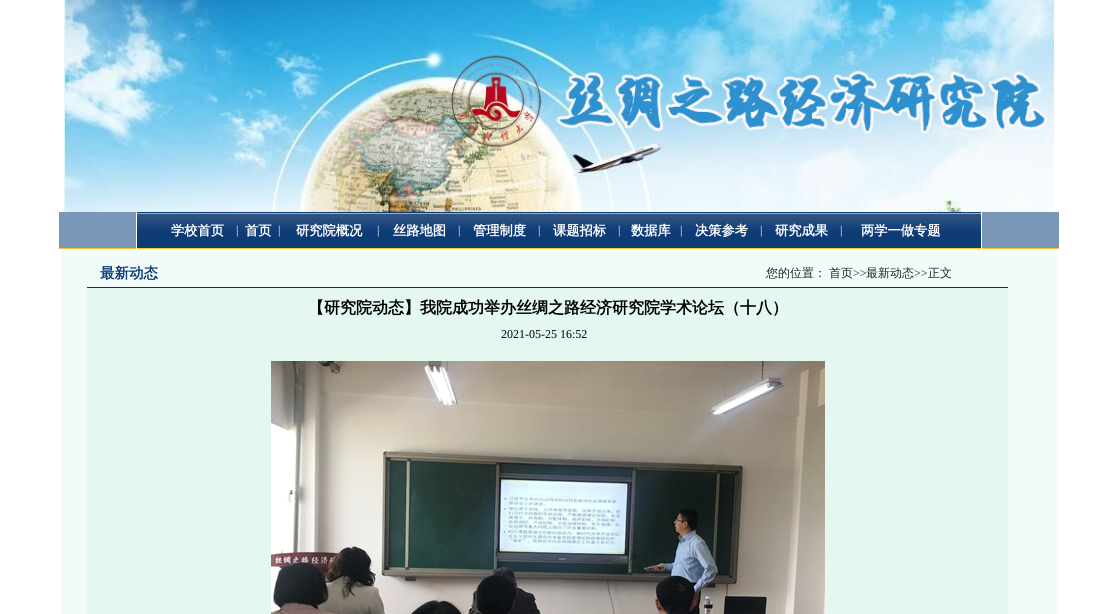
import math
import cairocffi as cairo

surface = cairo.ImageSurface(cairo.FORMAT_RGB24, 1118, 614)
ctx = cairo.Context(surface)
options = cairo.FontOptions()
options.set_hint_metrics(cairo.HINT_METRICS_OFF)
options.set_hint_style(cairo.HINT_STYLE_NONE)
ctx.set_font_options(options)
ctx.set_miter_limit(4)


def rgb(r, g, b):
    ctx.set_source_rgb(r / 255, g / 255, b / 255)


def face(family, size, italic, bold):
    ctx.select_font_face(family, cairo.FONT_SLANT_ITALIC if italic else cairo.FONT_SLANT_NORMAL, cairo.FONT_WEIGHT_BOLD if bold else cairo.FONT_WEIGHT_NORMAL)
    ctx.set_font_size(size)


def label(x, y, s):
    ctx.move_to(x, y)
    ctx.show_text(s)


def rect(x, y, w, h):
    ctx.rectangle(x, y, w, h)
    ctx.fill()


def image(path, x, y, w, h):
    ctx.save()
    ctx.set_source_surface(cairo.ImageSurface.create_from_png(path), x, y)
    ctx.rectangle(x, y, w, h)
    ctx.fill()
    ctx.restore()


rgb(255, 255, 255)
ctx.paint()
image('image0.png', 64, 0, 990, 212)
image('image1.png', 451, 55, 596, 93)
image('image2.png', 59, 212, 77, 37)
image('image3.png', 137, 212, 844, 37)
face('WenQuanYi Zen Hei', 13.25, 0, 1)
rgb(255, 255, 255)
label(171, 235, '学校首页')
face('Liberation Serif', 12, 0, 0)
label(236, 234, '|')
face('WenQuanYi Zen Hei', 13.25, 0, 1)
label(245, 235, '首页')
face('Liberation Serif', 12, 0, 0)
label(278, 234, '|')
face('WenQuanYi Zen Hei', 13.25, 0, 1)
label(296, 235, '研究院概况')
face('Liberation Serif', 12, 0, 0)
label(377, 234, '|')
face('WenQuanYi Zen Hei', 13.25, 0, 1)
label(393, 235, '丝路地图')
face('Liberation Serif', 12, 0, 0)
label(458, 234, '|')
face('WenQuanYi Zen Hei', 13.25, 0, 1)
label(473, 235, '管理制度')
face('Liberation Serif', 12, 0, 0)
label(538, 234, '|')
face('WenQuanYi Zen Hei', 13.25, 0, 1)
label(553, 235, '课题招标')
face('Liberation Serif', 12, 0, 0)
label(618, 234, '|')
face('WenQuanYi Zen Hei', 13.25, 0, 1)
label(631, 235, '数据库')
face('Liberation Serif', 12, 0, 0)
label(680, 234, '|')
face('WenQuanYi Zen Hei', 13.25, 0, 1)
label(695, 235, '决策参考')
face('Liberation Serif', 12, 0, 0)
label(760, 234, '|')
face('WenQuanYi Zen Hei', 13.25, 0, 1)
label(775, 235, '研究成果')
face('Liberation Serif', 12, 0, 0)
label(840, 234, '|')
face('WenQuanYi Zen Hei', 13.25, 0, 1)
label(861, 235, '两学一做专题')
image('image2.png', 982, 212, 77, 37)
rgb(241, 252, 250)
rect(61, 249, 996, 365)
rgb(0, 49, 104)
rect(87, 287, 921, 1)
face('WenQuanYi Zen Hei', 14.5, 0, 1)
rgb(13, 59, 118)
label(100, 278, '最新动态')
face('WenQuanYi Zen Hei Medium', 12, 0, 0)
rgb(34, 34, 34)
label(766, 277, '您的位置：')
label(829, 277, '首页')
face('Liberation Serif', 12, 0, 0)
label(853, 277, '>>')
face('WenQuanYi Zen Hei Medium', 12, 0, 0)
label(866, 277, '最新动态')
face('Liberation Serif', 12, 0, 0)
label(914, 277, '>>')
face('WenQuanYi Zen Hei Medium', 12, 0, 0)
label(928, 277, '正文')
rgb(228, 248, 240)
rect(87, 288, 921, 326)
face('WenQuanYi Zen Hei', 16, 0, 1)
rgb(0, 0, 0)
label(308, 313, '【研究院动态】我院成功举办丝绸之路经济研究院学术论坛（十八）')
face('Liberation Serif', 12, 0, 0)
label(501, 338, '2021-05-25 16:52')
image('image4.png', 271, 361, 554, 253)
surface.write_to_png('render.png')
